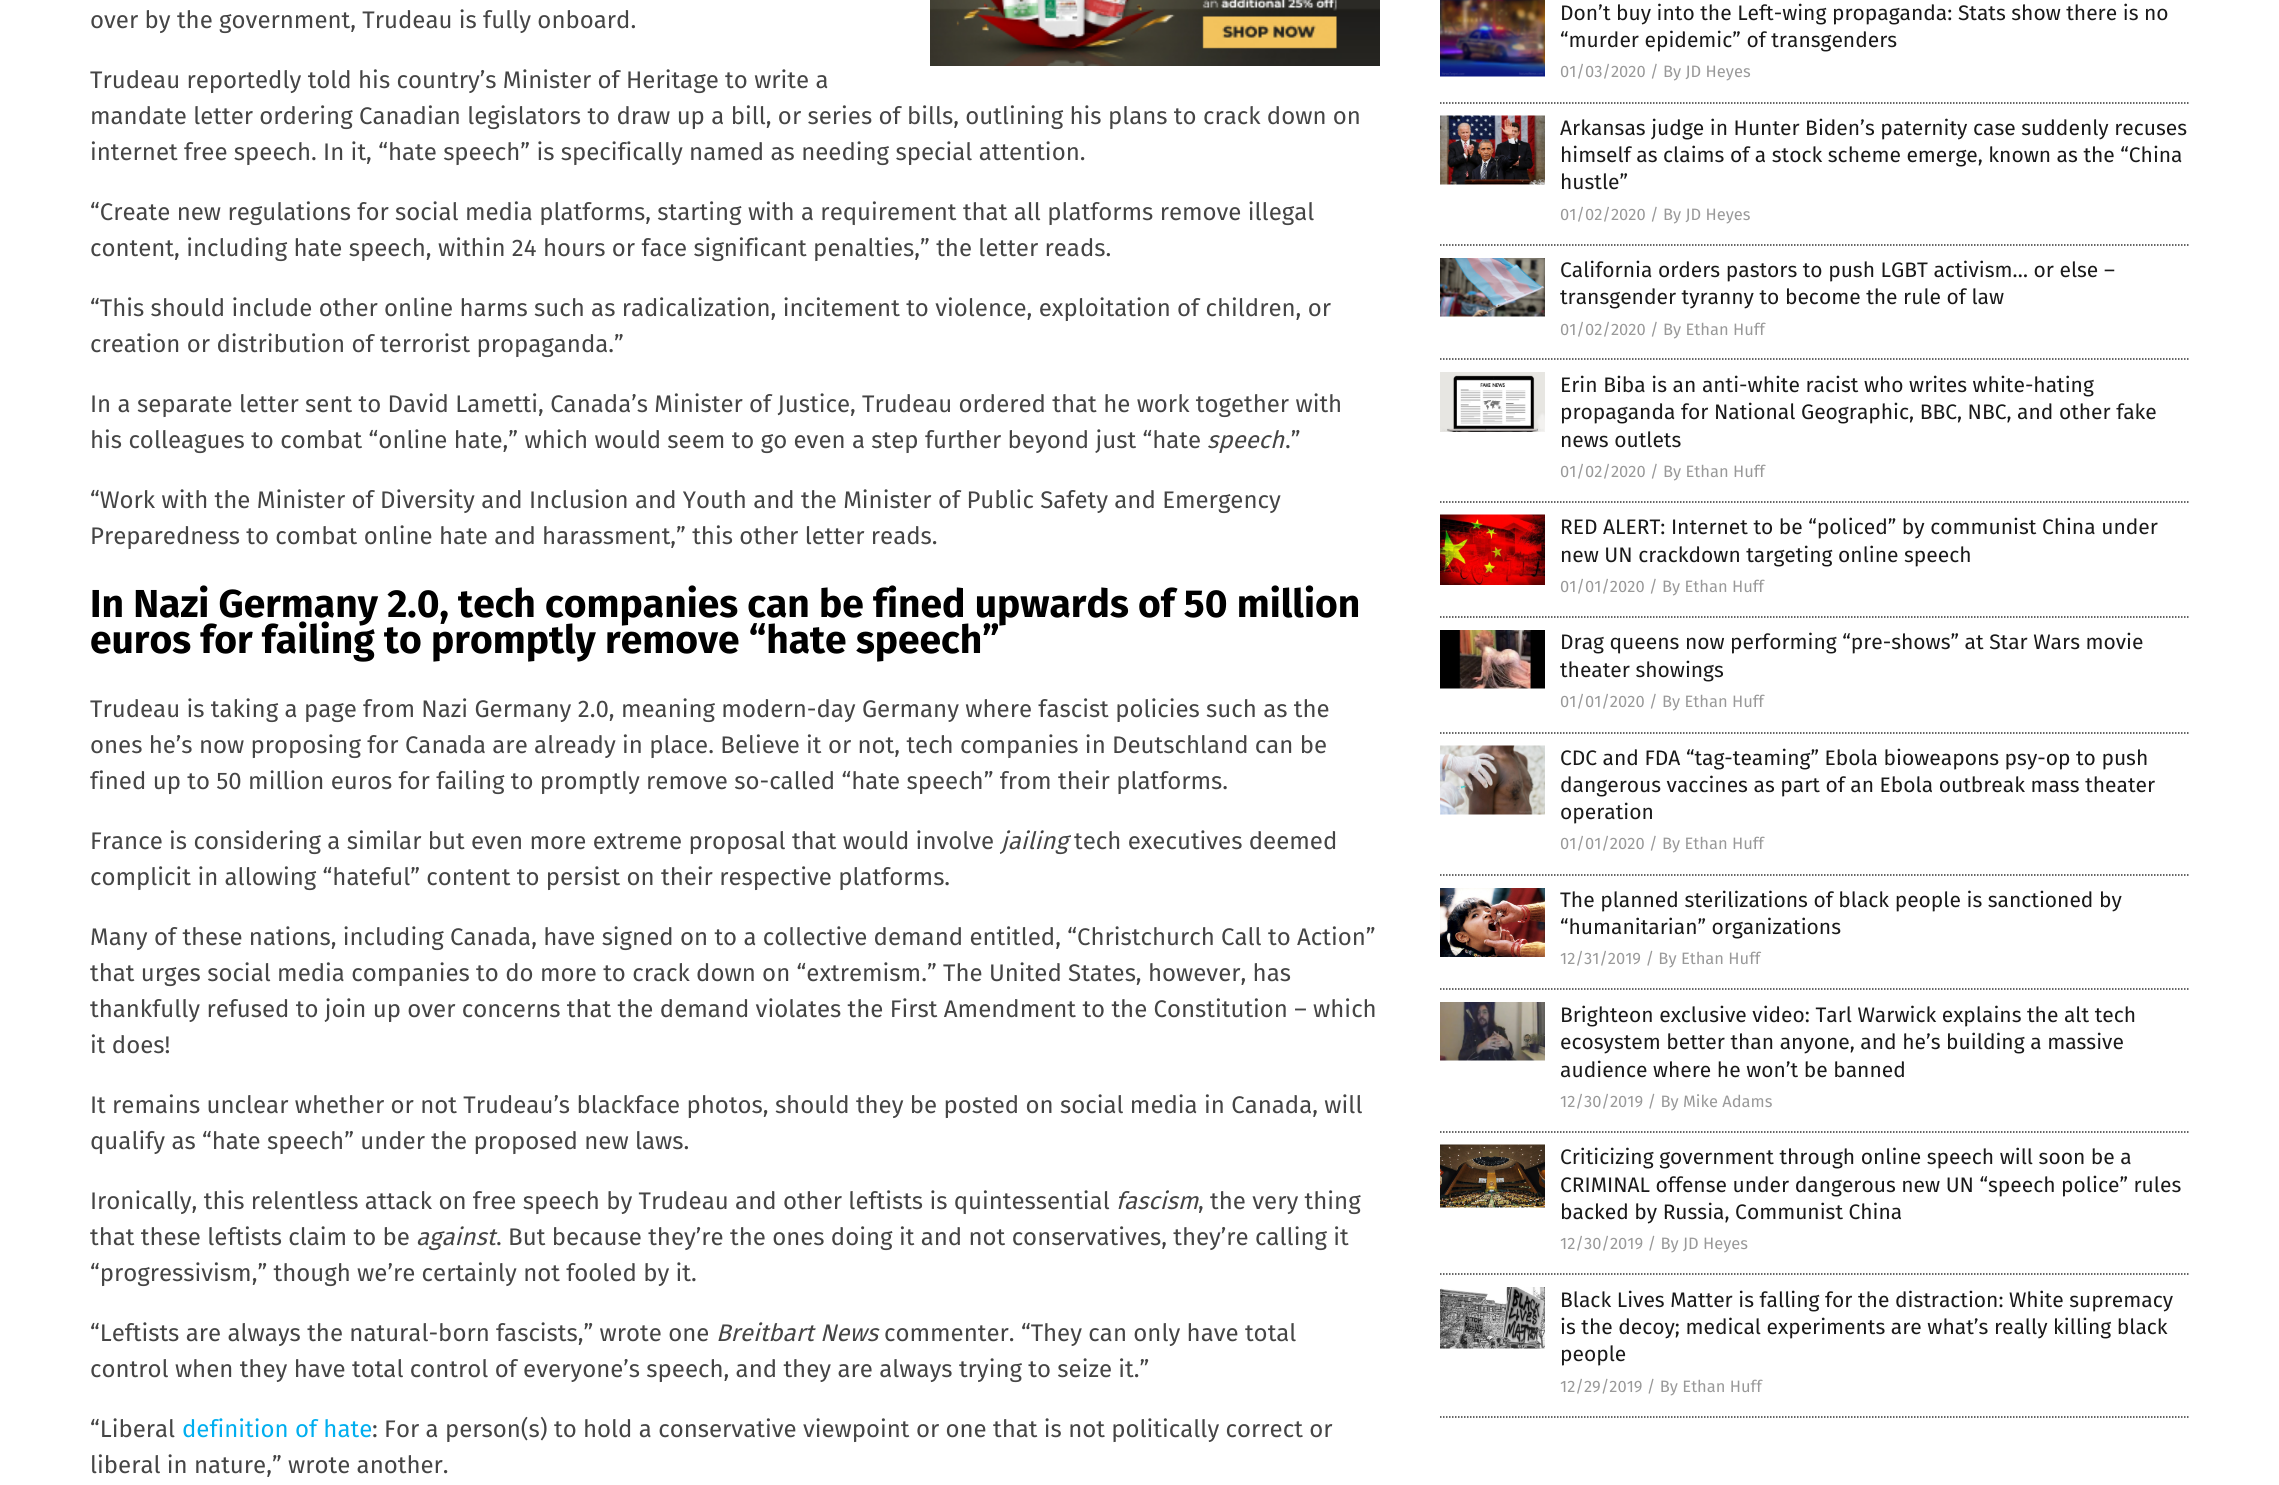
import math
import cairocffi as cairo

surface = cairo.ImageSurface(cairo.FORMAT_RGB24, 2279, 1485)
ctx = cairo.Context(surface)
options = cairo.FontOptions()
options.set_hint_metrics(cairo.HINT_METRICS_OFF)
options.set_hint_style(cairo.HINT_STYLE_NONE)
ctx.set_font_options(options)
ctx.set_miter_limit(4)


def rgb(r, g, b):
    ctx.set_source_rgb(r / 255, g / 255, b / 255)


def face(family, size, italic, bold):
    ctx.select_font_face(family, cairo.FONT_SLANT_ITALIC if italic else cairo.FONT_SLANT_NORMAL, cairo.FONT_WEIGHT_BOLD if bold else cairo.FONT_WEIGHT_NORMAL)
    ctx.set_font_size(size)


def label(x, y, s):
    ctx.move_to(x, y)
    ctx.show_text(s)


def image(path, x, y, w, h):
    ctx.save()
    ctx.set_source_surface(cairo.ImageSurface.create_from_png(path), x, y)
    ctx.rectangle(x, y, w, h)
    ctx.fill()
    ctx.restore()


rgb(255, 255, 255)
ctx.paint()
face('Fira Sans', 24, 0, 0)
rgb(69, 69, 69)
label(90, 28, 'over by the government, Trudeau is fully onboard.')
image('image0.png', 930, 0, 450, 66)
label(90, 88, 'Trudeau reportedly told his country’s Minister of Heritage to write a')
label(90, 124, 'mandate letter ordering Canadian legislators to draw up a bill, or series of bills, outlining his plans to crack down on')
label(90, 160, 'internet free speech. In it, “hate speech” is specifically named as needing special attention.')
label(90, 220, '“Create new regulations for social media platforms, starting with a requirement that all platforms remove illegal')
label(90, 256, 'content, including hate speech, within 24 hours or face significant penalties,” the letter reads.')
label(90, 316, '“This should include other online harms such as radicalization, incitement to violence, exploitation of children, or')
label(90, 352, 'creation or distribution of terrorist propaganda.”')
label(90, 412, 'In a separate letter sent to David Lametti, Canada’s Minister of Justice, Trudeau ordered that he work together with')
label(90, 448, 'his colleagues to combat “online hate,” which would seem to go even a step further beyond just “hate')
face('Fira Sans', 24, 1, 0)
label(1207, 448, 'speech')
face('Fira Sans', 24, 0, 0)
label(1285, 448, '.”')
label(90, 508, '“Work with the Minister of Diversity and Inclusion and Youth and the Minister of Public Safety and Emergency')
label(90, 544, 'Preparedness to combat online hate and harassment,” this other letter reads.')
face('Fira Sans', 39, 0, 1)
rgb(0, 0, 0)
label(90, 617, 'In Nazi Germany 2.0, tech companies can be fined upwards of 50 million')
label(90, 653, 'euros for failing to promptly remove “hate speech”')
face('Fira Sans', 24, 0, 0)
rgb(69, 69, 69)
label(90, 717, 'Trudeau is taking a page from Nazi Germany 2.0, meaning modern-day Germany where fascist policies such as the')
label(90, 753, 'ones he’s now proposing for Canada are already in place. Believe it or not, tech companies in Deutschland can be')
label(90, 789, 'fined up to 50 million euros for failing to promptly remove so-called “hate speech” from their platforms.')
label(90, 849, 'France is considering a similar but even more extreme proposal that would involve')
face('Fira Sans', 24, 1, 0)
label(1001, 849, 'jailing')
face('Fira Sans', 24, 0, 0)
label(1074, 849, 'tech executives deemed')
label(90, 885, 'complicit in allowing “hateful” content to persist on their respective platforms.')
label(90, 945, 'Many of these nations, including Canada, have signed on to a collective demand entitled, “Christchurch Call to Action”')
label(90, 981, 'that urges social media companies to do more to crack down on “extremism.” The United States, however, has')
label(90, 1017, 'thankfully refused to join up over concerns that the demand violates the First Amendment to the Constitution – which')
label(90, 1053, 'it does!')
label(90, 1113, 'It remains unclear whether or not Trudeau’s blackface photos, should they be posted on social media in Canada, will')
label(90, 1149, 'qualify as “hate speech” under the proposed new laws.')
label(90, 1209, 'Ironically, this relentless attack on free speech by Trudeau and other leftists is quintessential')
face('Fira Sans', 24, 1, 0)
label(1116, 1209, 'fascism')
face('Fira Sans', 24, 0, 0)
label(1198, 1209, ', the very thing')
label(90, 1245, 'that these leftists claim to be')
face('Fira Sans', 24, 1, 0)
label(416, 1245, 'against')
face('Fira Sans', 24, 0, 0)
label(496, 1245, '. But because they’re the ones doing it and not conservatives, they’re calling it')
label(90, 1281, '“progressivism,” though we’re certainly not fooled by it.')
label(90, 1341, '“Leftists are always the natural-born fascists,” wrote one')
face('Fira Sans', 24, 1, 0)
label(716, 1341, 'Breitbart News')
face('Fira Sans', 24, 0, 0)
label(884, 1341, 'commenter. “They can only have total')
label(90, 1377, 'control when they have total control of everyone’s speech, and they are always trying to seize it.”')
label(90, 1437, '“Liberal')
rgb(0, 174, 239)
label(182, 1437, 'definition of hate')
rgb(69, 69, 69)
label(372, 1437, ': For a person(s) to hold a conservative viewpoint or one that is not politically correct or')
label(90, 1473, 'liberal in nature,” wrote another.')
ctx.new_path()
ctx.move_to(1440, 103)
ctx.line_to(2190, 103)
rgb(52, 52, 52)
ctx.set_line_width(1.5)
ctx.set_dash([1.5, 1.5])
ctx.stroke()
image('image1.png', 1440, 0, 105, 77)
face('Fira Sans', 21, 0, 0)
rgb(26, 26, 26)
label(1560, 20, 'Don’t buy into the Left-wing propaganda: Stats show there is no')
label(1560, 47, '“murder epidemic” of transgenders')
face('Fira Sans', 16.5, 0, 0)
rgb(153, 153, 153)
label(1560, 77, '01/03/2020 / By JD Heyes')
ctx.new_path()
ctx.move_to(1440, 245)
ctx.line_to(2190, 245)
rgb(52, 52, 52)
ctx.stroke()
image('image2.png', 1440, 115, 105, 70)
face('Fira Sans', 21, 0, 0)
rgb(26, 26, 26)
label(1560, 135, 'Arkansas judge in Hunter Biden’s paternity case suddenly recuses')
label(1560, 162, 'himself as claims of a stock scheme emerge, known as the “China')
label(1560, 189, 'hustle”')
face('Fira Sans', 16.5, 0, 0)
rgb(153, 153, 153)
label(1560, 220, '01/02/2020 / By JD Heyes')
ctx.new_path()
ctx.move_to(1440, 359)
ctx.line_to(2190, 359)
rgb(52, 52, 52)
ctx.stroke()
image('image3.png', 1440, 258, 105, 59)
face('Fira Sans', 21, 0, 0)
rgb(26, 26, 26)
label(1560, 277, 'California orders pastors to push LGBT activism… or else –')
label(1560, 304, 'transgender tyranny to become the rule of law')
face('Fira Sans', 16.5, 0, 0)
rgb(153, 153, 153)
label(1560, 335, '01/02/2020 / By Ethan Huff')
ctx.new_path()
ctx.move_to(1440, 502)
ctx.line_to(2190, 502)
rgb(52, 52, 52)
ctx.stroke()
image('image4.png', 1440, 372, 105, 60)
face('Fira Sans', 21, 0, 0)
rgb(26, 26, 26)
label(1560, 392, 'Erin Biba is an anti-white racist who writes white-hating')
label(1560, 419, 'propaganda for National Geographic, BBC, NBC, and other fake')
label(1560, 447, 'news outlets')
face('Fira Sans', 16.5, 0, 0)
rgb(153, 153, 153)
label(1560, 477, '01/02/2020 / By Ethan Huff')
ctx.new_path()
ctx.move_to(1440, 617)
ctx.line_to(2190, 617)
rgb(52, 52, 52)
ctx.stroke()
image('image5.png', 1440, 514, 105, 71)
face('Fira Sans', 21, 0, 0)
rgb(26, 26, 26)
label(1560, 534, 'RED ALERT: Internet to be “policed” by communist China under')
label(1560, 562, 'new UN crackdown targeting online speech')
face('Fira Sans', 16.5, 0, 0)
rgb(153, 153, 153)
label(1560, 592, '01/01/2020 / By Ethan Huff')
ctx.new_path()
ctx.move_to(1440, 733)
ctx.line_to(2190, 733)
rgb(52, 52, 52)
ctx.stroke()
image('image6.png', 1440, 630, 105, 59)
face('Fira Sans', 21, 0, 0)
rgb(26, 26, 26)
label(1560, 649, 'Drag queens now performing “pre-shows” at Star Wars movie')
label(1560, 677, 'theater showings')
face('Fira Sans', 16.5, 0, 0)
rgb(153, 153, 153)
label(1560, 707, '01/01/2020 / By Ethan Huff')
ctx.new_path()
ctx.move_to(1440, 875)
ctx.line_to(2190, 875)
rgb(52, 52, 52)
ctx.stroke()
image('image7.png', 1440, 745, 105, 70)
face('Fira Sans', 21, 0, 0)
rgb(26, 26, 26)
label(1560, 765, 'CDC and FDA “tag-teaming” Ebola bioweapons psy-op to push')
label(1560, 792, 'dangerous vaccines as part of an Ebola outbreak mass theater')
label(1560, 819, 'operation')
face('Fira Sans', 16.5, 0, 0)
rgb(153, 153, 153)
label(1560, 849, '01/01/2020 / By Ethan Huff')
ctx.new_path()
ctx.move_to(1440, 989)
ctx.line_to(2190, 989)
rgb(52, 52, 52)
ctx.stroke()
image('image8.png', 1440, 888, 105, 69)
face('Fira Sans', 21, 0, 0)
rgb(26, 26, 26)
label(1560, 907, 'The planned sterilizations of black people is sanctioned by')
label(1560, 934, '“humanitarian” organizations')
face('Fira Sans', 16.5, 0, 0)
rgb(153, 153, 153)
label(1560, 964, '12/31/2019 / By Ethan Huff')
ctx.new_path()
ctx.move_to(1440, 1132)
ctx.line_to(2190, 1132)
rgb(52, 52, 52)
ctx.stroke()
image('image9.png', 1440, 1002, 105, 59)
face('Fira Sans', 21, 0, 0)
rgb(26, 26, 26)
label(1560, 1022, 'Brighteon exclusive video: Tarl Warwick explains the alt tech')
label(1560, 1049, 'ecosystem better than anyone, and he’s building a massive')
label(1560, 1077, 'audience where he won’t be banned')
face('Fira Sans', 16.5, 0, 0)
rgb(153, 153, 153)
label(1560, 1107, '12/30/2019 / By Mike Adams')
ctx.new_path()
ctx.move_to(1440, 1274)
ctx.line_to(2190, 1274)
rgb(52, 52, 52)
ctx.stroke()
image('image10.png', 1440, 1144, 105, 64)
face('Fira Sans', 21, 0, 0)
rgb(26, 26, 26)
label(1560, 1164, 'Criticizing government through online speech will soon be a')
label(1560, 1192, 'CRIMINAL offense under dangerous new UN “speech police” rules')
label(1560, 1219, 'backed by Russia, Communist China')
face('Fira Sans', 16.5, 0, 0)
rgb(153, 153, 153)
label(1560, 1249, '12/30/2019 / By JD Heyes')
ctx.new_path()
ctx.move_to(1440, 1417)
ctx.line_to(2190, 1417)
rgb(52, 52, 52)
ctx.stroke()
image('image11.png', 1440, 1287, 105, 62)
face('Fira Sans', 21, 0, 0)
rgb(26, 26, 26)
label(1560, 1307, 'Black Lives Matter is falling for the distraction: White supremacy')
label(1560, 1334, 'is the decoy; medical experiments are what’s really killing black')
label(1560, 1361, 'people')
face('Fira Sans', 16.5, 0, 0)
rgb(153, 153, 153)
label(1560, 1392, '12/29/2019 / By Ethan Huff')
surface.write_to_png('render.png')
